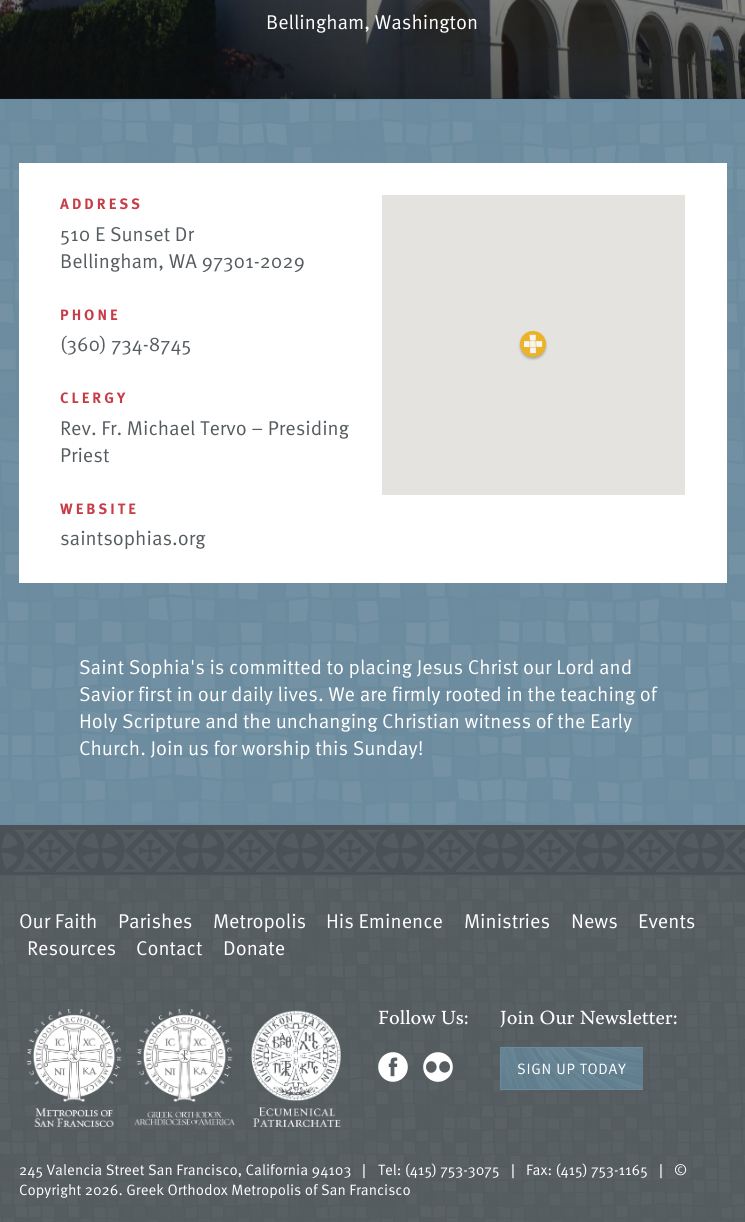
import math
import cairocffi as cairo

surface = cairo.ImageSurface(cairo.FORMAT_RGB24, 745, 1222)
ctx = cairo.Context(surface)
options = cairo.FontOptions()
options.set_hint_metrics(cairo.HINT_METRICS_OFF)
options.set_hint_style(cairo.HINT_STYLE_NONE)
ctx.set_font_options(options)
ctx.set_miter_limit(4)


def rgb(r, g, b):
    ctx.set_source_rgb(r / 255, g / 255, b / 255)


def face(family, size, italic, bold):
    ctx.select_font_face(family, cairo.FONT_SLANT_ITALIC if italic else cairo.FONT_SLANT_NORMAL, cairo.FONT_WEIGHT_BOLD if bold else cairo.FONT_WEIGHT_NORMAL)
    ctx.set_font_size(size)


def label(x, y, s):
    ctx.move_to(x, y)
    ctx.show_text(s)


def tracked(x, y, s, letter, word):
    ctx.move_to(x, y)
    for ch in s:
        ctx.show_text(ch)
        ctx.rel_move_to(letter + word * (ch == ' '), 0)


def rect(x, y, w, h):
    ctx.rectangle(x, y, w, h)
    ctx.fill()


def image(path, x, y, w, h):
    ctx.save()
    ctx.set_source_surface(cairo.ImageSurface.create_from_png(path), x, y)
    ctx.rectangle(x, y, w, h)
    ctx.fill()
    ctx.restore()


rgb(85, 92, 96)
ctx.paint()
image('image0.png', 30, 0, 715, 99)
image('image1.png', 0, 0, 745, 99)
gradient = cairo.LinearGradient(373, -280, 373, 99)
gradient.add_color_stop_rgba(0, 0.059, 0.067, 0.071, 0)
gradient.add_color_stop_rgba(1, 0.059, 0.067, 0.071, 0.65)
ctx.set_source(gradient)
rect(0, 0, 745, 99)
face('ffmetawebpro', 20, 0, 0)
rgb(255, 255, 255)
label(266, 29, 'Bellingham, Washington')
rgb(107, 139, 158)
rect(0, 99, 745, 726)
image('image2.png', 0, 99, 745, 726)
rgb(255, 255, 255)
rect(19, 163, 708, 420)
face('ffmetawebpro', 15, 0, 1)
rgb(198, 61, 71)
tracked(60, 209, 'ADDRESS', 3, 0)
face('ffmetawebpro', 20, 0, 0)
rgb(85, 92, 96)
label(60, 241, '510 E Sunset Dr')
label(60, 268, 'Bellingham, WA 97301-2029')
face('ffmetawebpro', 15, 0, 1)
rgb(198, 61, 71)
tracked(60, 320, 'PHONE', 3, 0)
face('ffmetawebpro', 20, 0, 0)
rgb(85, 92, 96)
label(60, 351, '(360) 734-8745')
face('ffmetawebpro', 15, 0, 1)
rgb(198, 61, 71)
tracked(60, 403, 'CLERGY', 3, 0)
face('ffmetawebpro', 20, 0, 0)
rgb(85, 92, 96)
label(60, 435, 'Rev. Fr. Michael Tervo – Presiding')
label(60, 462, 'Priest')
face('ffmetawebpro', 15, 0, 1)
rgb(198, 61, 71)
tracked(60, 514, 'WEBSITE', 3, 0)
face('ffmetawebpro', 20, 0, 0)
rgb(85, 92, 96)
label(60, 545, 'saintsophias.org')
rgb(229, 227, 223)
rect(382, 195, 303, 300)
image('image3.png', 518, 331, 30, 30)
rgb(255, 255, 255)
label(79, 674, 'Saint Sophia\'s is committed to placing Jesus Christ our Lord and')
label(79, 701, 'Savior first in our daily lives. We are firmly rooted in the teaching of')
label(79, 728, 'Holy Scripture and the unchanging Christian witness of the Early')
label(79, 755, 'Church. Join us for worship this Sunday!')
image('image4.png', 0, 825, 745, 50)
image('image5.png', 0, 875, 745, 347)
label(19, 928, 'Our Faith')
label(118, 928, 'Parishes')
label(213, 928, 'Metropolis')
label(326, 928, 'His Eminence')
label(464, 928, 'Ministries')
label(571, 928, 'News')
label(638, 928, 'Events')
label(27, 955, 'Resources')
label(136, 955, 'Contact')
label(223, 955, 'Donate')
image('image6.png', 26, 1009, 96, 118)
image('image7.png', 134, 1009, 101, 117)
image('image8.png', 251, 1010, 90, 117)
face('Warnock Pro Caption', 20, 0, 0)
label(378, 1024, 'Follow Us:')
image('image9.png', 378, 1052, 30, 30)
image('image10.png', 423, 1052, 30, 30)
label(500, 1024, 'Join Our Newsletter:')
rgb(107, 139, 158)
rect(500, 1047, 143, 43)
image('image11.png', 501, 1048, 142, 41)
face('ffmetawebpro', 15, 0, 0)
rgb(255, 255, 255)
tracked(517, 1074, 'SIGN UP TODAY', 0.75, 0)
label(19, 1175, '245 Valencia Street San Francisco, California 94103')
face('Liberation Sans', 15, 0, 0)
label(362, 1175, '|')
face('ffmetawebpro', 15, 0, 0)
label(378, 1175, 'Tel: (415) 753-3075')
face('Liberation Sans', 15, 0, 0)
label(511, 1175, '|')
face('ffmetawebpro', 15, 0, 0)
label(526, 1175, 'Fax: (415) 753-1165')
face('Liberation Sans', 15, 0, 0)
label(659, 1175, '|')
face('ffmetawebpro', 15, 0, 0)
label(674, 1175, '©')
label(19, 1195, 'Copyright 2026. Greek Orthodox Metropolis of San Francisco')
surface.write_to_png('render.png')
